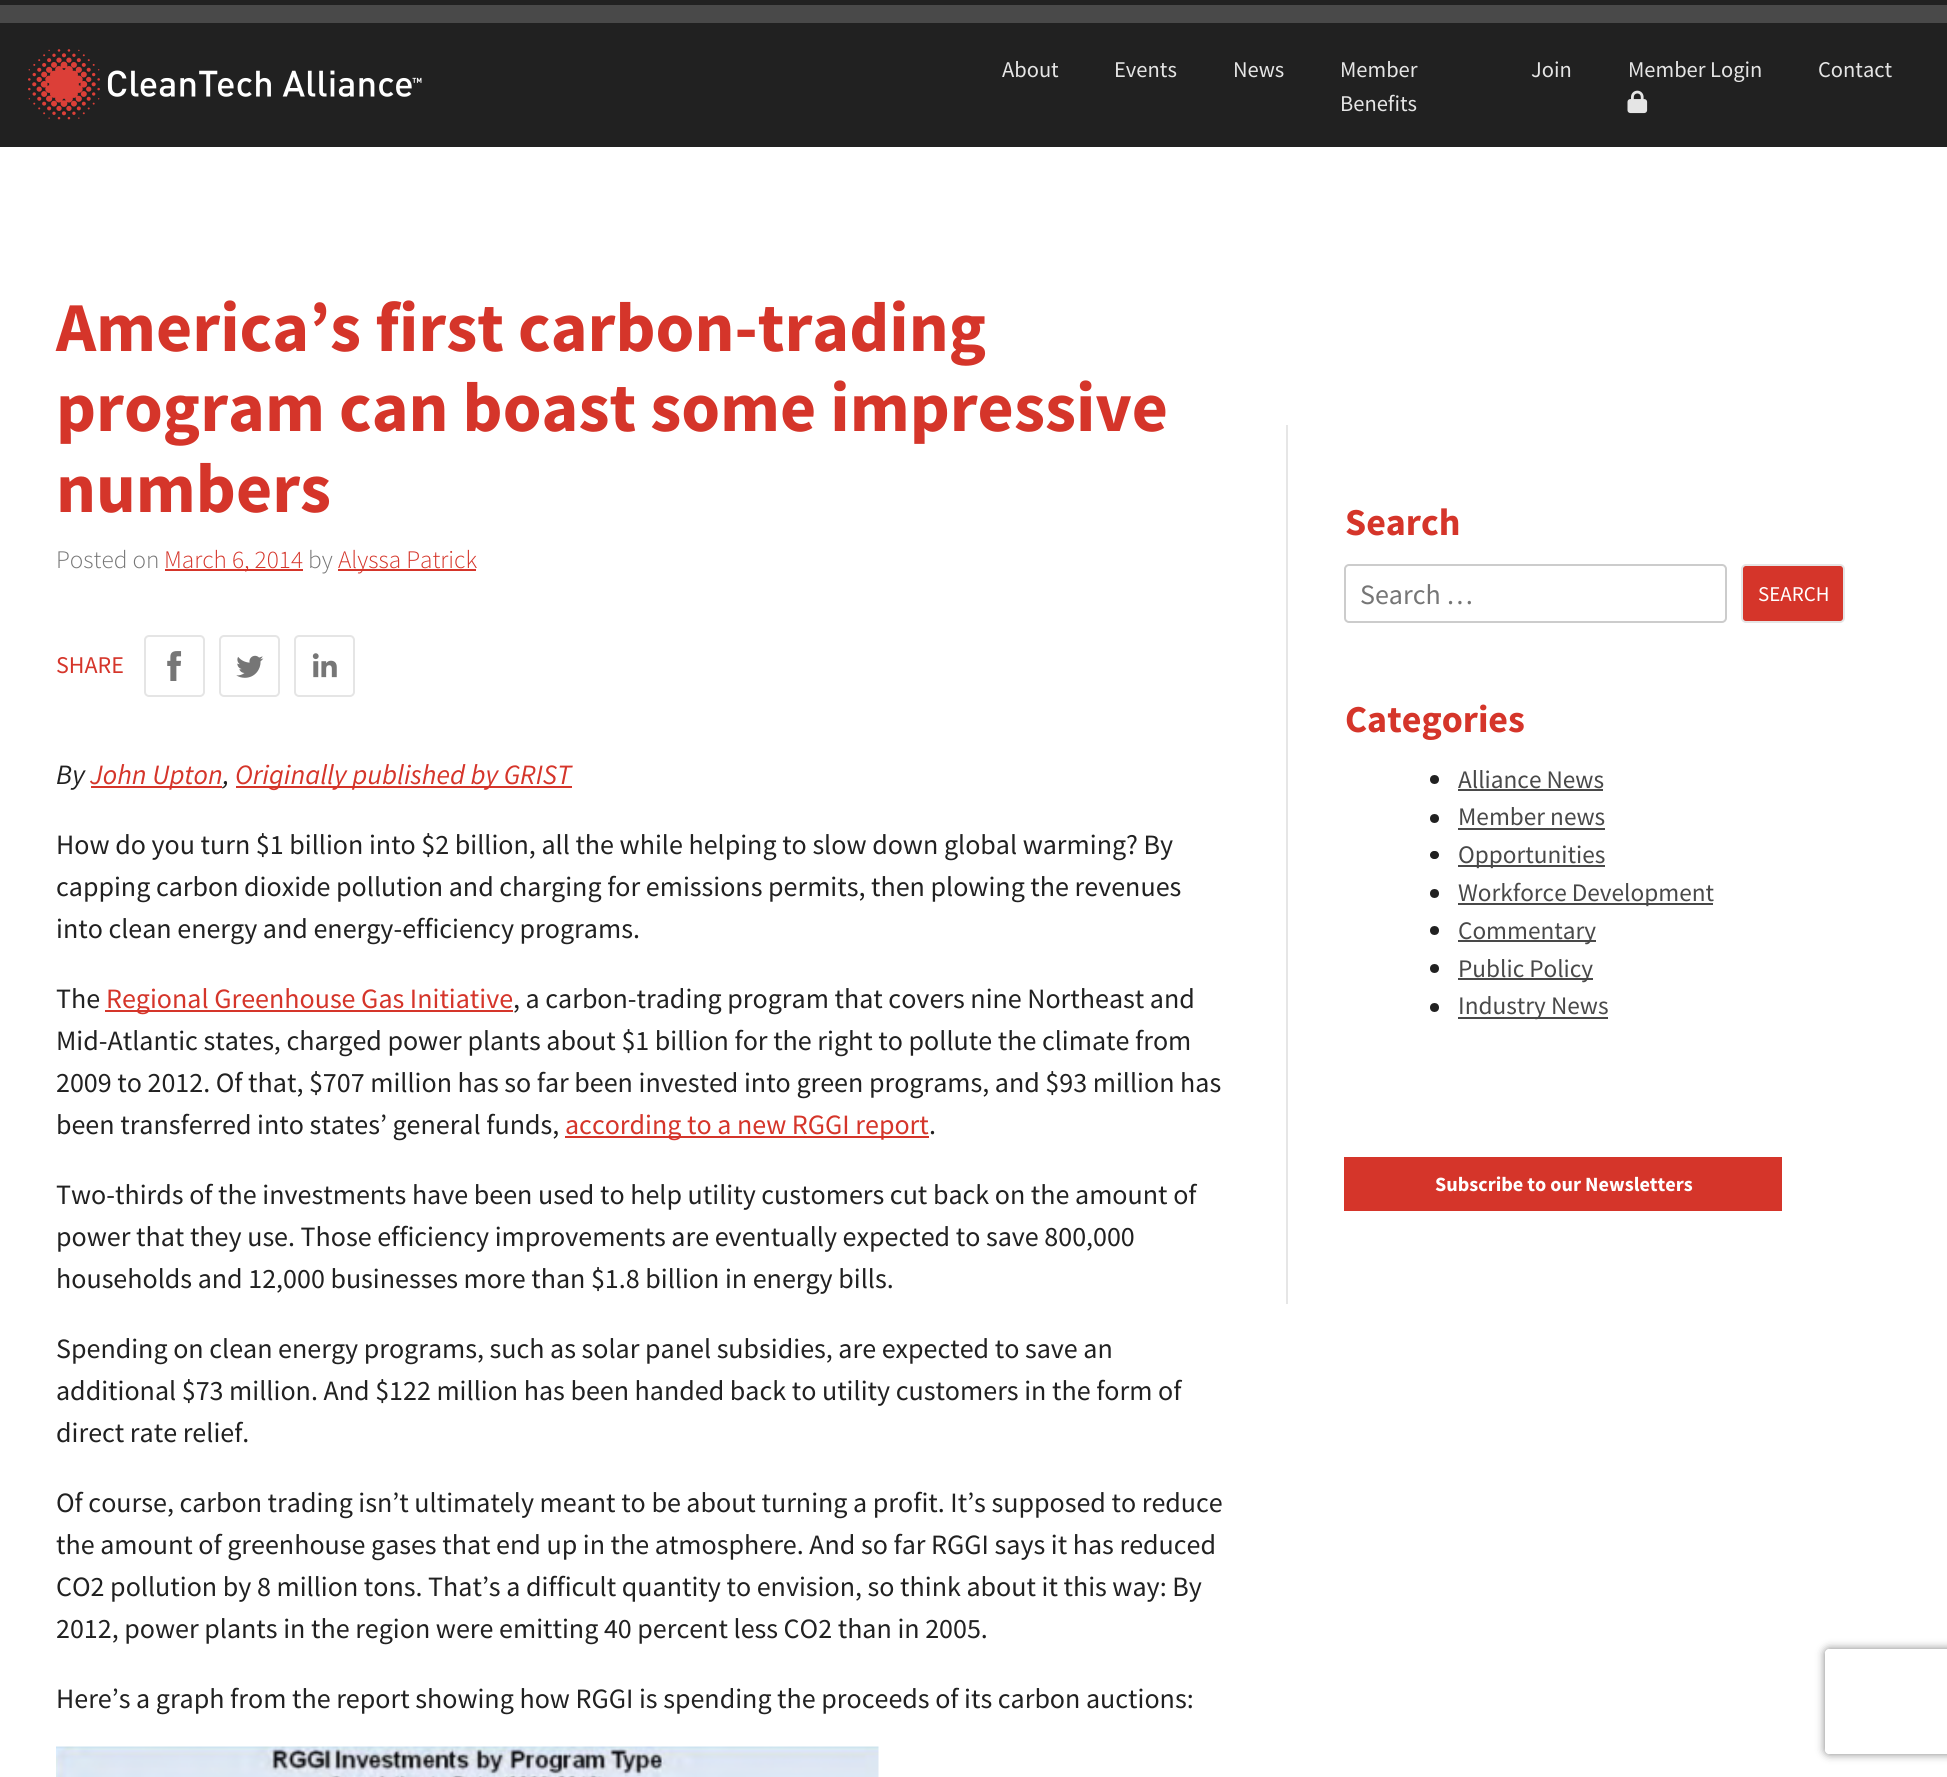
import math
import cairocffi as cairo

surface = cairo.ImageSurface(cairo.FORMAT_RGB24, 1947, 1777)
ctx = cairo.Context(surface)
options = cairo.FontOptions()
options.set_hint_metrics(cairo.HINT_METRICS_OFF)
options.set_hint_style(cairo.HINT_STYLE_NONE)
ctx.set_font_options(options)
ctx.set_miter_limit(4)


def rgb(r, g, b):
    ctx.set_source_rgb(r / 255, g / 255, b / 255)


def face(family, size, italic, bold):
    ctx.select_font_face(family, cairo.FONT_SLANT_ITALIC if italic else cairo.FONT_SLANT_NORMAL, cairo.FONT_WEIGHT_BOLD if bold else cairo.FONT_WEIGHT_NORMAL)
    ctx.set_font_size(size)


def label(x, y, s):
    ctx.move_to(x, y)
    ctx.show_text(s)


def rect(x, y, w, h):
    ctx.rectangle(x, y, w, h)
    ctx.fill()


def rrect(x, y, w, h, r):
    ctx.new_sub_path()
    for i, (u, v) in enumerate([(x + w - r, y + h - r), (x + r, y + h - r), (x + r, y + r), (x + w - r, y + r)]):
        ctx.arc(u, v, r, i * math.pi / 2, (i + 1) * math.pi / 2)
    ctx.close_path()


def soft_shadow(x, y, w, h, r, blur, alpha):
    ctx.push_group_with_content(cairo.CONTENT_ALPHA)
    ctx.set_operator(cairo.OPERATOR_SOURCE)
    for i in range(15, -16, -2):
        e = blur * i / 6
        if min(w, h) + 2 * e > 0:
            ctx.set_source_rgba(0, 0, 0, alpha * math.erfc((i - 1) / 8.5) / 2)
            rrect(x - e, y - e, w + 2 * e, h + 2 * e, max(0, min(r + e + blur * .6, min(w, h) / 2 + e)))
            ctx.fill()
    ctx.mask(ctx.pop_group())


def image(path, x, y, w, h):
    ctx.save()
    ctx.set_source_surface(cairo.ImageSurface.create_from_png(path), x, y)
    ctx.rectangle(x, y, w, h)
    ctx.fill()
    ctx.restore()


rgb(255, 255, 255)
ctx.paint()
rgb(33, 33, 33)
rect(0, 0, 1947, 5)
rect(0, 23, 1947, 124)
rgb(73, 73, 73)
rect(0, 5, 1947, 18)
image('image0.png', 28, 49, 394, 71)
face('Source Sans Pro', 22.5, 0, 0)
rgb(229, 229, 229)
label(1002, 77, 'About')
label(1114, 77, 'Events')
label(1233, 77, 'News')
label(1340, 77, 'Member')
label(1340, 111, 'Benefits')
label(1531, 77, 'Join')
label(1628, 77, 'Member Login')
image('image1.png', 1627, 90, 21, 24)
label(1818, 77, 'Contact')
face('Source Sans Pro', 70, 0, 1)
rgb(213, 53, 42)
label(56, 351, 'America’s first carbon-trading')
label(56, 431, 'program can boast some impressive')
label(56, 512, 'numbers')
face('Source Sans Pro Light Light', 25.25, 0, 0)
rgb(118, 118, 118)
label(56, 568, 'Posted on')
rgb(213, 53, 42)
rect(165, 569, 138, 2)
label(164, 568, 'March 6, 2014')
rgb(118, 118, 118)
label(308, 568, 'by')
rgb(213, 53, 42)
rect(338, 569, 138, 2)
label(338, 568, 'Alyssa Patrick')
face('Source Sans Pro', 24, 0, 0)
label(56, 673, 'SHARE')
rrect(145, 636, 59, 60, 4)
rgb(229, 229, 229)
ctx.stroke()
image('image2.png', 167, 651, 15, 30)
rrect(220, 636, 59, 60, 4)
ctx.stroke()
image('image3.png', 236, 655, 28, 23)
rrect(295, 636, 59, 60, 4)
ctx.stroke()
image('image4.png', 312, 653, 25, 25)
face('Source Sans Pro', 28, 1, 0)
rgb(33, 33, 33)
label(56, 784, 'By')
rgb(213, 53, 42)
rect(91, 786, 131, 2)
label(90, 784, 'John Upton')
rgb(33, 33, 33)
label(223, 784, ',')
rgb(213, 53, 42)
rect(236, 786, 336, 2)
label(235, 784, 'Originally published by GRIST')
face('Source Sans Pro', 28, 0, 0)
rgb(33, 33, 33)
label(56, 854, 'How do you turn $1 billion into $2 billion, all the while helping to slow down global warming? By')
label(56, 896, 'capping carbon dioxide pollution and charging for emissions permits, then plowing the revenues')
label(56, 938, 'into clean energy and energy-efficiency programs.')
label(56, 1008, 'The')
rgb(213, 53, 42)
rect(105, 1010, 408, 2)
label(106, 1008, 'Regional Greenhouse Gas Initiative')
rgb(33, 33, 33)
label(513, 1008, ', a carbon-trading program that covers nine Northeast and')
label(56, 1050, 'Mid-Atlantic states, charged power plants about $1 billion for the right to pollute the climate from')
label(56, 1092, '2009 to 2012. Of that, $707 million has so far been invested into green programs, and $93 million has')
label(56, 1134, 'been transferred into states’ general funds,')
rgb(213, 53, 42)
rect(565, 1136, 364, 2)
label(565, 1134, 'according to a new RGGI report')
rgb(33, 33, 33)
label(929, 1134, '.')
label(56, 1204, 'Two-thirds of the investments have been used to help utility customers cut back on the amount of')
label(56, 1246, 'power that they use. Those efficiency improvements are eventually expected to save 800,000')
label(56, 1288, 'households and 12,000 businesses more than $1.8 billion in energy bills.')
label(56, 1358, 'Spending on clean energy programs, such as solar panel subsidies, are expected to save an')
label(56, 1400, 'additional $73 million. And $122 million has been handed back to utility customers in the form of')
label(56, 1442, 'direct rate relief.')
label(56, 1512, 'Of course, carbon trading isn’t ultimately meant to be about turning a profit. It’s supposed to reduce')
label(56, 1554, 'the amount of greenhouse gases that end up in the atmosphere. And so far RGGI says it has reduced')
label(56, 1596, 'CO2 pollution by 8 million tons. That’s a difficult quantity to envision, so think about it this way: By')
label(56, 1638, '2012, power plants in the region were emitting 40 percent less CO2 than in 2005.')
label(56, 1708, 'Here’s a graph from the report showing how RGGI is spending the proceeds of its carbon auctions:')
image('image5.png', 56, 1746, 823, 31)
rgb(230, 230, 230)
rect(1286, 425, 2, 879)
face('Source Sans Pro', 38, 0, 1)
rgb(213, 53, 42)
label(1345, 535, 'Search')
rrect(1345, 565, 381, 57, 4)
rgb(204, 204, 204)
ctx.stroke()
face('Source Sans Pro', 28, 0, 0)
rgb(118, 118, 118)
label(1360, 604, 'Search …')
rgb(213, 53, 42)
rrect(1742, 565, 102, 57, 4)
ctx.fill_preserve()
rgb(229, 229, 229)
ctx.stroke()
face('Source Sans Pro', 21, 0, 0)
rgb(255, 255, 255)
label(1758, 601, 'SEARCH')
face('Source Sans Pro', 38, 0, 1)
rgb(213, 53, 42)
label(1345, 732, 'Categories')
rgb(33, 33, 33)
ctx.new_path()
ctx.arc(1434.5, 779.5, 4.5, 0, 2 * math.pi)
ctx.fill()
face('Source Sans Pro', 25.25, 0, 0)
rgb(73, 73, 73)
label(1458, 788, 'Alliance News')
rect(1458, 789, 145, 2)
rgb(33, 33, 33)
ctx.new_path()
ctx.arc(1434.5, 818.5, 4.5, 0, 2 * math.pi)
ctx.fill()
rgb(73, 73, 73)
label(1458, 825, 'Member news')
rect(1458, 828, 147, 2)
rgb(33, 33, 33)
rrect(1430, 851, 9, 8, 4)
ctx.fill()
rgb(73, 73, 73)
rect(1458, 865, 147, 2)
label(1458, 863, 'Opportunities')
rgb(33, 33, 33)
ctx.new_path()
ctx.arc(1434.5, 893.5, 4.5, 0, 2 * math.pi)
ctx.fill()
rgb(73, 73, 73)
rect(1458, 903, 255, 2)
label(1458, 901, 'Workforce Development')
rgb(33, 33, 33)
ctx.new_path()
ctx.arc(1434.5, 930.5, 4.5, 0, 2 * math.pi)
ctx.fill()
rgb(73, 73, 73)
rect(1458, 940, 138, 2)
label(1458, 939, 'Commentary')
rgb(33, 33, 33)
ctx.new_path()
ctx.arc(1434.5, 968.5, 4.5, 0, 2 * math.pi)
ctx.fill()
rgb(73, 73, 73)
rect(1458, 978, 135, 2)
label(1458, 977, 'Public Policy')
rgb(33, 33, 33)
ctx.new_path()
ctx.arc(1434.5, 1007.5, 4.5, 0, 2 * math.pi)
ctx.fill()
rgb(73, 73, 73)
rect(1458, 1017, 150, 2)
label(1458, 1014, 'Industry News')
rgb(213, 53, 42)
rect(1344, 1157, 438, 54)
face('Source Sans Pro', 20.2, 0, 1)
rgb(255, 255, 255)
label(1435, 1191, 'Subscribe to our Newsletters')
ctx.save()
ctx.set_fill_rule(cairo.FILL_RULE_EVEN_ODD)
ctx.new_path()
ctx.move_to(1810, 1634)
ctx.line_to(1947, 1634)
ctx.line_to(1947, 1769)
ctx.line_to(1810, 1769)
ctx.close_path()
ctx.move_to(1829, 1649)
ctx.line_to(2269, 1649)
ctx.curve_to(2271, 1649, 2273, 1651, 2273, 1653)
ctx.line_to(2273, 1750)
ctx.curve_to(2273, 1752, 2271, 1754, 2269, 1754)
ctx.line_to(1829, 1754)
ctx.curve_to(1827, 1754, 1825, 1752, 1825, 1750)
ctx.line_to(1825, 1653)
ctx.curve_to(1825, 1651, 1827, 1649, 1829, 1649)
ctx.close_path()
ctx.clip()
rgb(128, 128, 128)
soft_shadow(1825, 1649, 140, 105, 4, 4.5, 1)
ctx.restore()
surface.write_to_png('render.png')
